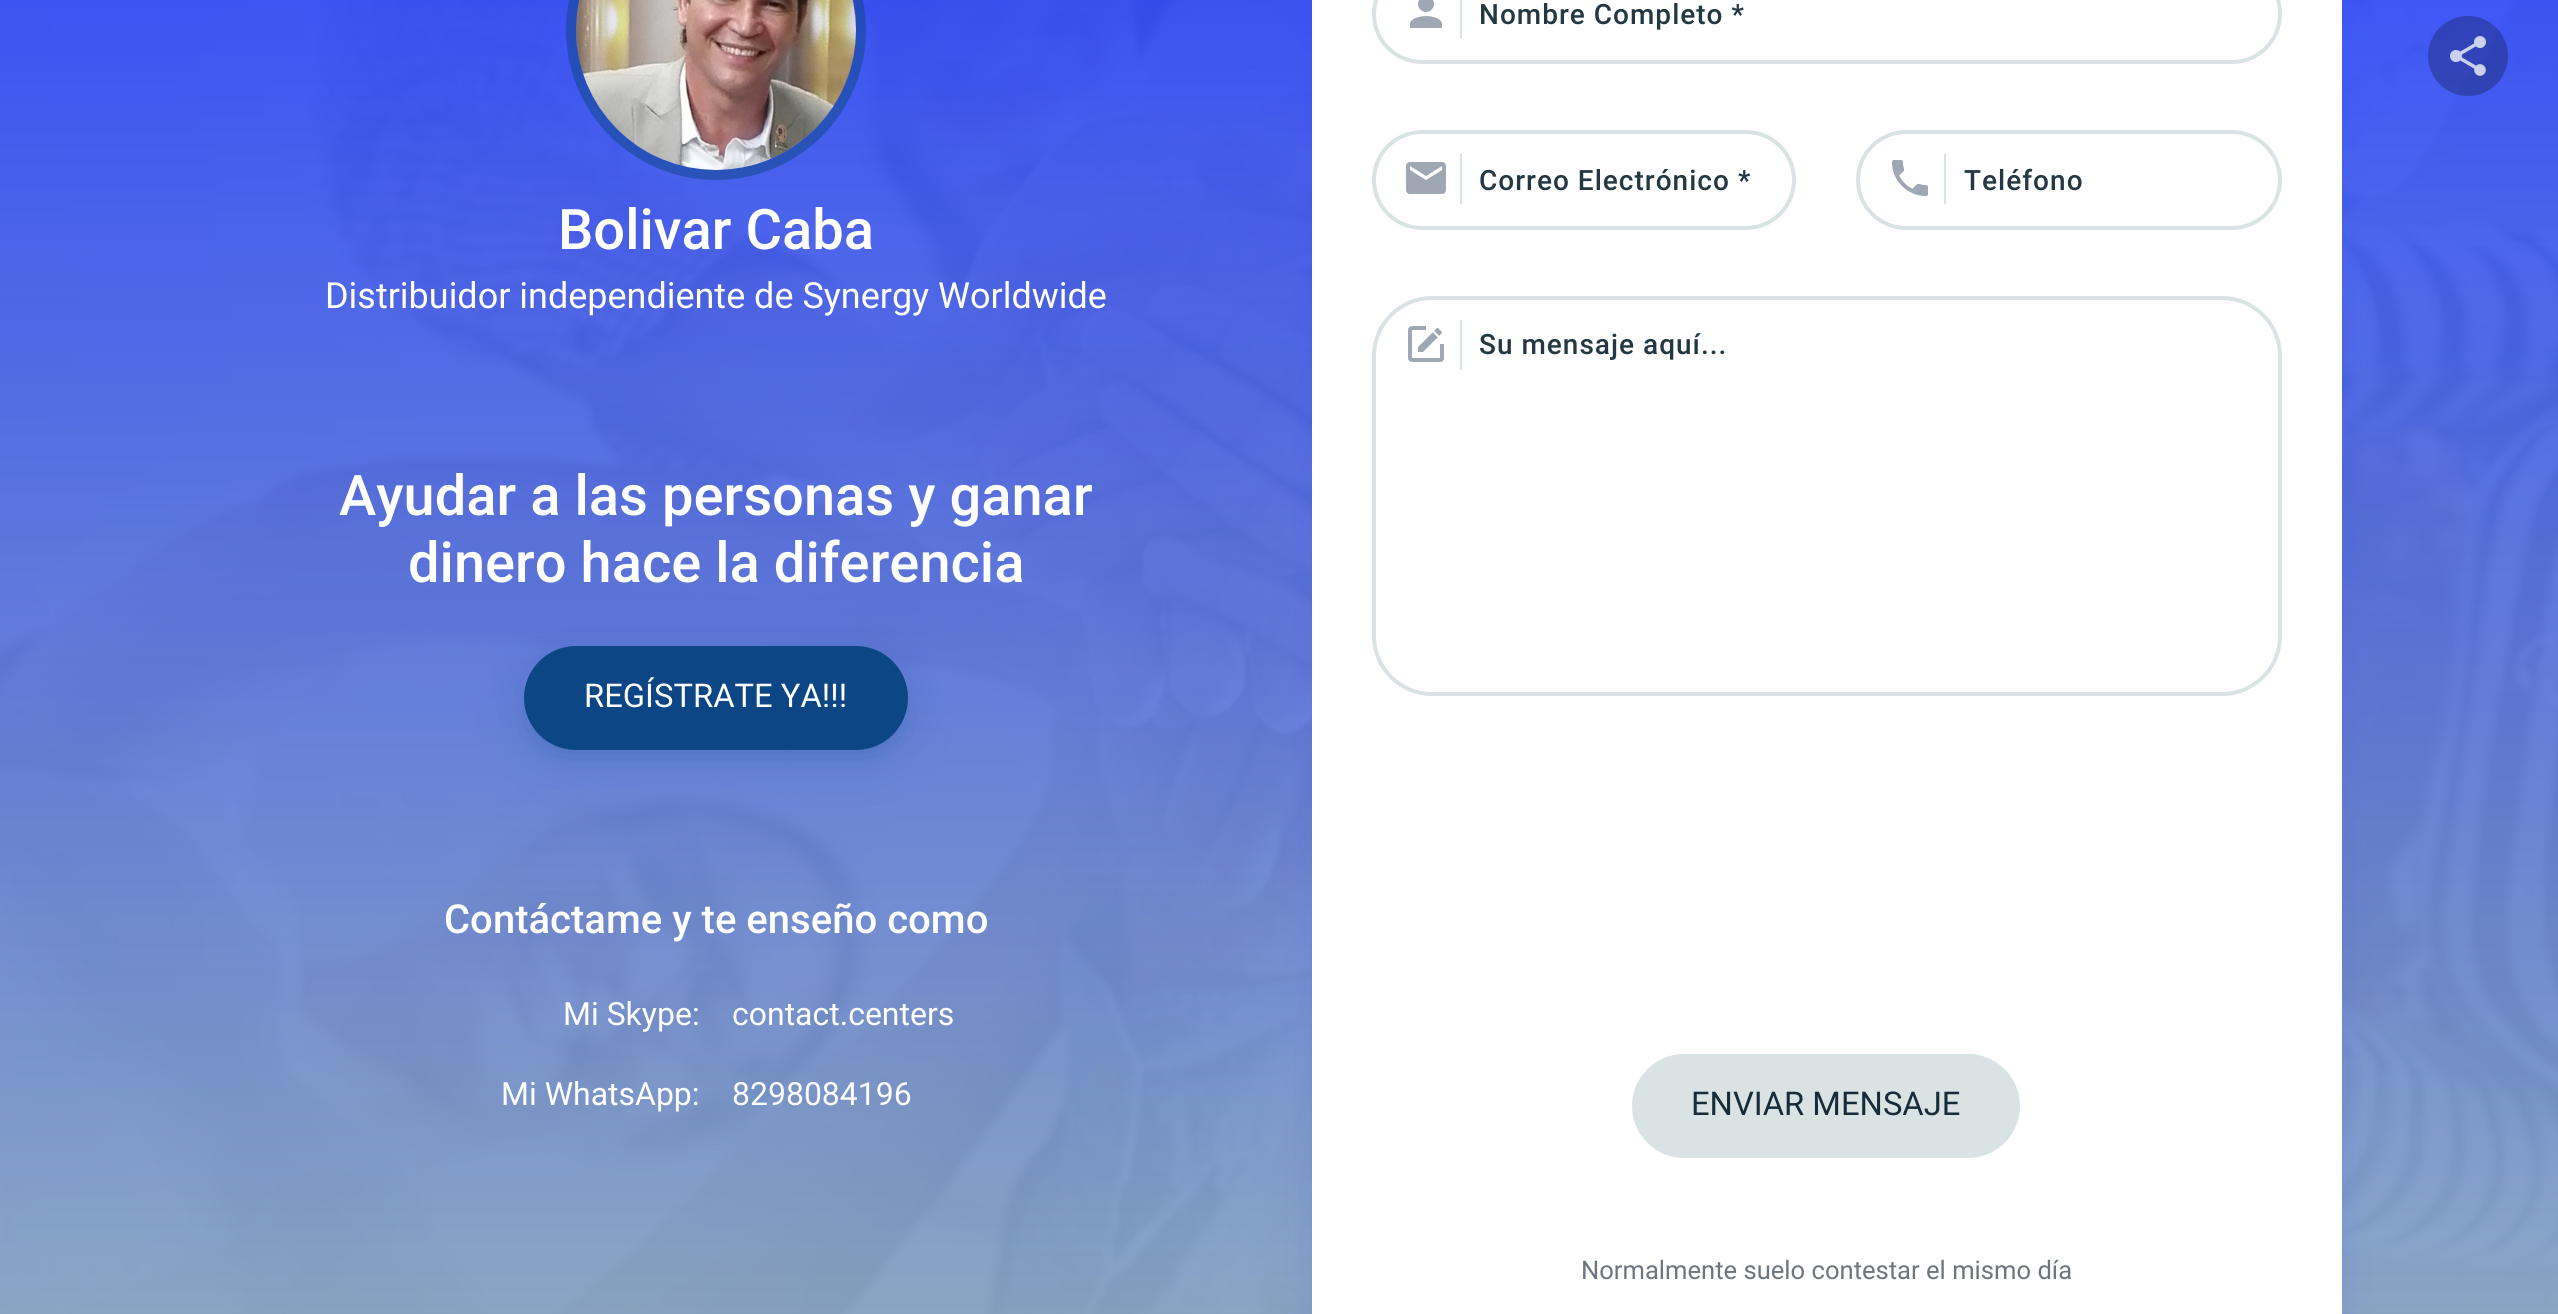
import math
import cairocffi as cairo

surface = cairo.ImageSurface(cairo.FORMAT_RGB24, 2558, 1314)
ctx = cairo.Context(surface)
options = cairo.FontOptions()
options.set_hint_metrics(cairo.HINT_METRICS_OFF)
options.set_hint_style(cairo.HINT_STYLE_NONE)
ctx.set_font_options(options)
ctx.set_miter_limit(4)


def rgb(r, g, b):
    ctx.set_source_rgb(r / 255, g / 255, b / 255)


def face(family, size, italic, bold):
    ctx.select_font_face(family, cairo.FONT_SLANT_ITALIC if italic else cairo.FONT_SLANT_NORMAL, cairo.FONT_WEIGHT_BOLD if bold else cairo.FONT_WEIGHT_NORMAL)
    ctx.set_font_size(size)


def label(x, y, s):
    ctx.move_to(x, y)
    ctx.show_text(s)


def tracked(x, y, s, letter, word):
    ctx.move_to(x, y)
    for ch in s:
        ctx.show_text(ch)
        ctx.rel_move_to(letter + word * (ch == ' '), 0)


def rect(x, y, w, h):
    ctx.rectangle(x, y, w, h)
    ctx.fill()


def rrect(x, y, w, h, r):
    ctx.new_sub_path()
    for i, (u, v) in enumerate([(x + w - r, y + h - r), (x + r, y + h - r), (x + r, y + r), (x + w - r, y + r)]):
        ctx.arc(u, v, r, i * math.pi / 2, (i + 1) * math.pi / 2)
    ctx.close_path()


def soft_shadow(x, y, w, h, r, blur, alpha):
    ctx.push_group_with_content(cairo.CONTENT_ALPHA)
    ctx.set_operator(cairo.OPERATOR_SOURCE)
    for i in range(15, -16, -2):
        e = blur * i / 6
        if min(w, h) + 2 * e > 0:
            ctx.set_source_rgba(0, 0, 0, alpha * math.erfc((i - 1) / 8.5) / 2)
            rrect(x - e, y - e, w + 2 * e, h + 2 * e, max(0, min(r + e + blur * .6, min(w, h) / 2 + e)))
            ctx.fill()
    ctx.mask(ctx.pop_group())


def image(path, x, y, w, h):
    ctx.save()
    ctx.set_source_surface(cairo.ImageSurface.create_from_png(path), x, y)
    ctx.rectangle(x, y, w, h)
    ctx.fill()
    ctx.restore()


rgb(255, 255, 255)
ctx.paint()
gradient = cairo.LinearGradient(1279, 0, 1279, 1314)
gradient.add_color_stop_rgba(0, 0.212, 0.31, 0.961, 1)
gradient.add_color_stop_rgba(1, 0.525, 0.639, 0.761, 1)
ctx.set_source(gradient)
rect(0, 0, 2558, 1314)
image('image0.png', 0, 0, 2558, 1314)
ctx.arc(716, 30, 145, 0, 2 * math.pi)
ctx.set_source_rgba(0.051, 0.275, 0.518, 0.5)
ctx.set_line_width(10)
ctx.stroke()
image('image1.png', 576, 0, 280, 170)
face('Roboto Medium', 56, 0, 0)
rgb(255, 255, 255)
label(558, 249, 'Bolivar Caba')
face('Roboto', 36, 0, 0)
label(325, 308, 'Distribuidor independiente de Synergy Worldwide')
face('Roboto Medium', 56, 0, 0)
label(339, 515, 'Ayudar a las personas y ganar')
label(408, 582, 'dinero hace la diferencia')
rgb(13, 70, 132)
soft_shadow(534, 672, 364, 84, 42, 10, 0.12)
soft_shadow(524, 654, 384, 104, 52, 23, 0.2)
rgb(13, 70, 132)
rrect(524, 646, 384, 104, 52)
ctx.fill()
face('Roboto', 32.75, 0, 0)
rgb(255, 255, 255)
label(584, 707, 'REGÍSTRATE YA!!!')
face('Roboto Medium', 40, 0, 0)
label(444, 933, 'Contáctame y te enseño como')
face('Roboto', 32, 0, 0)
label(563, 1025, 'Mi Skype:')
label(732, 1025, 'contact.centers')
label(501, 1105, 'Mi WhatsApp:')
label(732, 1105, '8298084196')
rgb(54, 69, 243)
soft_shadow(1312, -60, 1030, 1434, 12, 16, 0.15)
rgb(255, 255, 255)
rect(1312, 0, 1030, 1314)
rrect(1374, -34, 906, 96, 48)
rgb(218, 227, 228)
ctx.set_line_width(4)
ctx.stroke()
rect(1460, 0, 2, 38)
image('image2.png', 1410, 0, 32, 28)
face('Roboto Medium', 28, 0, 0)
rgb(36, 56, 66)
tracked(1479, 24, 'Nombre Completo *', 1, 0)
rrect(1374, 132, 420, 96, 48)
rgb(218, 227, 228)
ctx.stroke()
rect(1460, 154, 2, 50)
image('image3.png', 1406, 162, 40, 32)
rgb(36, 56, 66)
tracked(1479, 190, 'Correo Electrónico *', 1, 0)
rrect(1858, 132, 422, 96, 48)
rgb(218, 227, 228)
ctx.stroke()
rect(1944, 154, 2, 50)
image('image4.png', 1892, 160, 36, 36)
rgb(36, 56, 66)
tracked(1964, 190, 'Teléfono', 1, 0)
rrect(1374, 298, 906, 396, 58)
rgb(218, 227, 228)
ctx.stroke()
rect(1460, 320, 2, 50)
image('image5.png', 1408, 326, 36, 36)
rgb(36, 56, 66)
tracked(1479, 354, 'Su mensaje aquí...', 1, 0)
rgb(218, 227, 228)
rrect(1632, 1054, 388, 104, 52)
ctx.fill()
face('Roboto', 32.75, 0, 0)
rgb(23, 43, 57)
label(1691, 1115, 'ENVIAR MENSAJE')
face('Roboto', 25.6, 0, 0)
rgb(108, 117, 125)
label(1581, 1279, 'Normalmente suelo contestar el mismo día')
ctx.set_source_rgba(0, 0, 0, 0.25)
ctx.new_path()
ctx.arc(2468, 56, 40, 0, 2 * math.pi)
ctx.fill()
image('image6.png', 2450, 36, 36, 40)
surface.write_to_png('render.png')
